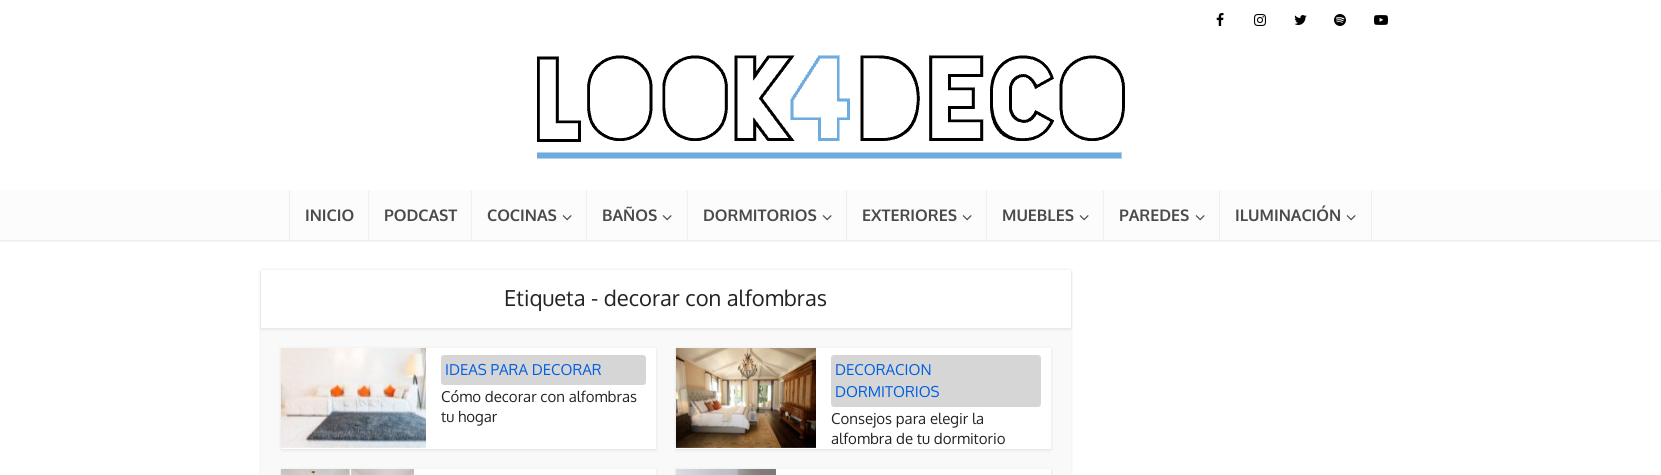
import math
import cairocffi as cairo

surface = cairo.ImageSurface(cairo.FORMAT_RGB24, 1661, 475)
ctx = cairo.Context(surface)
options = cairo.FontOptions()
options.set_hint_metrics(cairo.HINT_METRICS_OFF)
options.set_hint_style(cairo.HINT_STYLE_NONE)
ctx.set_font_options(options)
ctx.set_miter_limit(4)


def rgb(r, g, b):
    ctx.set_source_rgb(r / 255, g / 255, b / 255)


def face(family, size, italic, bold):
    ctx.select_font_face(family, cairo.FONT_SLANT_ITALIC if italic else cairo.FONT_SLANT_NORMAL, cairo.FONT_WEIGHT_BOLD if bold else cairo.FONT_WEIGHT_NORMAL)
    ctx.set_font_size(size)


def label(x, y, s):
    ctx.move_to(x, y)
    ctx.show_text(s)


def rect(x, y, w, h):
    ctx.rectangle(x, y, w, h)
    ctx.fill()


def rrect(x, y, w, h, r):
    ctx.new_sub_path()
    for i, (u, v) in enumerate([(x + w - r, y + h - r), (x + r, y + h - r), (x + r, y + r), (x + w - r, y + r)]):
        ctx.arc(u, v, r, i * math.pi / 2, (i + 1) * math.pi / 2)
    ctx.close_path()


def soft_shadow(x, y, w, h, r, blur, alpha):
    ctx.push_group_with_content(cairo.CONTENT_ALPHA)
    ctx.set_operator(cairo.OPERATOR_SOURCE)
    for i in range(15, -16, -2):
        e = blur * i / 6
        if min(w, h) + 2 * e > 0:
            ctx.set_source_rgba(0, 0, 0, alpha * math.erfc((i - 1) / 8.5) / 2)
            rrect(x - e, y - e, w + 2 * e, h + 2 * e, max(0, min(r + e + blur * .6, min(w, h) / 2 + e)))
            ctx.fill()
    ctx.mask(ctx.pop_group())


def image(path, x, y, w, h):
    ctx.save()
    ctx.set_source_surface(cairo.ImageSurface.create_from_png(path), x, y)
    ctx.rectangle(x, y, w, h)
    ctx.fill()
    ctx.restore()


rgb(255, 255, 255)
ctx.paint()
ctx.save()
ctx.rectangle(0, 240, 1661, 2)
ctx.clip()
rgb(0, 0, 0)
soft_shadow(0, 1, 1661, 240, 0, 1.5, 0.1)
ctx.restore()
image('image0.png', 1216, 13, 8, 13)
image('image1.png', 1254, 14, 12, 12)
image('image2.png', 1294, 15, 13, 10)
image('image3.png', 1334, 14, 12, 12)
image('image4.png', 1374, 15, 14, 10)
image('image5.png', 537, 55, 588, 104)
rgb(252, 252, 252)
rect(0, 190, 1661, 50)
rgb(239, 239, 239)
rect(289, 190, 1, 50)
face('Oxygen', 16, 0, 1)
rgb(74, 74, 74)
label(305, 221, 'INICIO')
rgb(239, 239, 239)
rect(368, 190, 1, 50)
rgb(74, 74, 74)
label(384, 221, 'PODCAST')
rgb(239, 239, 239)
rect(471, 190, 1, 50)
rgb(74, 74, 74)
label(487, 221, 'COCINAS')
image('image6.png', 562, 215, 10, 6)
rgb(239, 239, 239)
rect(586, 190, 1, 50)
rgb(74, 74, 74)
label(602, 221, 'BAÑOS')
image('image6.png', 662, 215, 10, 6)
rgb(239, 239, 239)
rect(687, 190, 1, 50)
rgb(74, 74, 74)
label(703, 221, 'DORMITORIOS')
image('image6.png', 822, 215, 10, 6)
rgb(239, 239, 239)
rect(846, 190, 1, 50)
rgb(74, 74, 74)
label(862, 221, 'EXTERIORES')
image('image6.png', 962, 215, 10, 6)
rgb(239, 239, 239)
rect(986, 190, 1, 50)
rgb(74, 74, 74)
label(1002, 221, 'MUEBLES')
image('image6.png', 1079, 215, 10, 6)
rgb(239, 239, 239)
rect(1103, 190, 1, 50)
rgb(74, 74, 74)
label(1119, 221, 'PAREDES')
image('image6.png', 1195, 215, 10, 6)
rgb(239, 239, 239)
rect(1371, 190, 1, 50)
rect(1219, 190, 1, 50)
rgb(74, 74, 74)
label(1235, 221, 'ILUMINACIÓN')
image('image6.png', 1346, 215, 10, 6)
rgb(0, 0, 0)
soft_shadow(261, 271, 810, 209, 0, 1.5, 0.1)
rgb(249, 249, 249)
rect(261, 328, 810, 147)
rgb(0, 0, 0)
soft_shadow(261, 271, 810, 58, 0, 1.5, 0.1)
rgb(255, 255, 255)
rect(261, 270, 810, 58)
face('Oxygen', 22, 0, 0)
rgb(35, 35, 35)
label(504, 306, 'Etiqueta - decorar con alfombras')
rgb(0, 0, 0)
soft_shadow(281, 349, 375, 101, 0, 1.5, 0.1)
rgb(255, 255, 255)
rect(281, 348, 375, 101)
image('image7.png', 281, 348, 145, 100)
rgb(214, 214, 214)
rrect(441, 355, 205, 30, 3)
ctx.fill()
face('Oxygen', 15, 0, 0)
rgb(0, 94, 226)
label(445, 375, 'IDEAS PARA DECORAR')
rgb(35, 35, 35)
label(441, 402, 'Cómo decorar con alfombras')
label(441, 422, 'tu hogar')
rgb(0, 0, 0)
soft_shadow(676, 349, 375, 101, 0, 1.5, 0.1)
rgb(255, 255, 255)
rect(676, 348, 375, 101)
image('image8.png', 676, 348, 140, 100)
rgb(214, 214, 214)
rrect(831, 355, 210, 52, 3)
ctx.fill()
rgb(0, 94, 226)
label(835, 375, 'DECORACION')
label(835, 397, 'DORMITORIOS')
rgb(35, 35, 35)
label(831, 424, 'Consejos para elegir la')
label(831, 444, 'alfombra de tu dormitorio')
rgb(0, 0, 0)
soft_shadow(281, 470, 375, 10, 0, 1.5, 0.1)
rgb(255, 255, 255)
rect(414, 469, 242, 6)
image('image9.png', 281, 469, 133, 6)
rgb(0, 0, 0)
soft_shadow(676, 470, 375, 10, 0, 1.5, 0.1)
rgb(255, 255, 255)
rect(776, 469, 275, 6)
image('image10.png', 676, 469, 100, 6)
surface.write_to_png('render.png')
